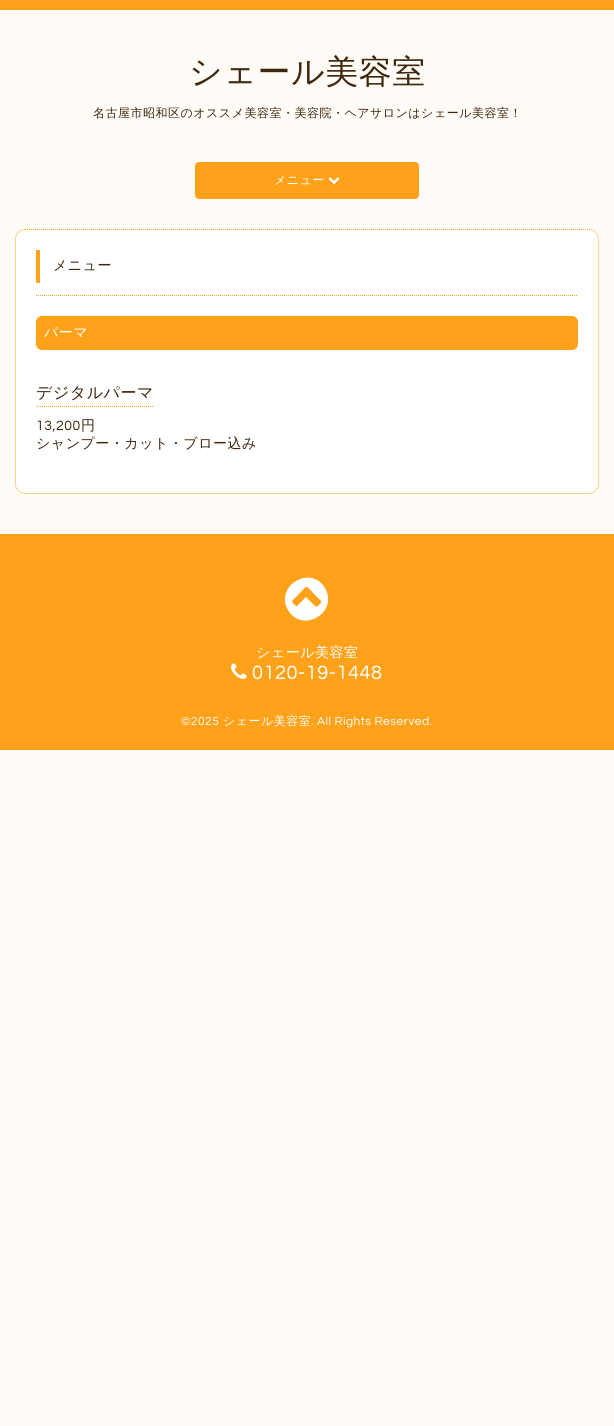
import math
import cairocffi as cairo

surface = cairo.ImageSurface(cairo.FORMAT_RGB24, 614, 1426)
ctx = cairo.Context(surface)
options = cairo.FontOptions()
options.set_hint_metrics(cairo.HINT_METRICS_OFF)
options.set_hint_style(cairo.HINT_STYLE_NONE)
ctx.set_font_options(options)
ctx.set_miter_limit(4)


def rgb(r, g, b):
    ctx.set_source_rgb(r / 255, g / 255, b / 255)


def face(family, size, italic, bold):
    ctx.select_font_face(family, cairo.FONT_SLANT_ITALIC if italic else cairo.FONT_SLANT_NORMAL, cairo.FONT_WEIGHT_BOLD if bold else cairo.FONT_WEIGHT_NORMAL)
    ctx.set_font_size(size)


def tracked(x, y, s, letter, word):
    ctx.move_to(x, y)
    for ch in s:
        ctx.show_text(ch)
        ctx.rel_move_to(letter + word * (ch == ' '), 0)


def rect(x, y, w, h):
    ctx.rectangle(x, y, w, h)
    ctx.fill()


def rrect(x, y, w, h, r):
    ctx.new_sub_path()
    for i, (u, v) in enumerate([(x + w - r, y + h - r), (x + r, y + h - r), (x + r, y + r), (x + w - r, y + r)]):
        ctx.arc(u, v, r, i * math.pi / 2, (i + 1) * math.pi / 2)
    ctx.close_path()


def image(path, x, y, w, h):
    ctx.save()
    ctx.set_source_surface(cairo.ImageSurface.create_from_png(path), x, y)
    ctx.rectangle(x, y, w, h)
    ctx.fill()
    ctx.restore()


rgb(255, 252, 248)
ctx.paint()
rgb(255, 162, 26)
rect(0, 0, 614, 10)
face('WenQuanYi Zen Hei Medium', 33, 0, 0)
rgb(63, 38, 13)
tracked(189, 83, 'シェール美容室', 0.5, 0)
face('WenQuanYi Zen Hei Medium', 12, 0, 0)
tracked(93, 117, '名古屋市昭和区のオススメ美容室・美容院・ヘアサロンはシェール美容室！', 0.5, 0)
rgb(255, 162, 26)
rrect(195, 162, 224, 37, 4)
ctx.fill()
rgb(255, 255, 255)
tracked(274, 184, 'メニュー', 0.5, 0)
image('image0.png', 328, 177, 12, 8)
rrect(15, 229, 584, 265, 10)
ctx.fill()
ctx.new_path()
ctx.move_to(25, 229.5)
ctx.line_to(589, 229.5)
ctx.curve_to(594, 229.5, 598.5, 234, 598.5, 239)
ctx.line_to(598.5, 484)
ctx.curve_to(598.5, 489, 594, 493.5, 589, 493.5)
ctx.line_to(25, 493.5)
ctx.curve_to(20, 493.5, 15.5, 489, 15.5, 484)
ctx.line_to(15.5, 239)
ctx.curve_to(15.5, 234, 20, 229.5, 25, 229.5)
ctx.close_path()
rgb(255, 162, 26)
ctx.set_line_width(1)
ctx.set_dash([1, 1])
ctx.stroke()
rect(36, 250, 4, 33)
face('WenQuanYi Zen Hei Medium', 14, 0, 0)
rgb(63, 38, 13)
tracked(53, 270, 'メニュー', 0.5, 0)
ctx.new_path()
ctx.move_to(36, 295.5)
ctx.line_to(578, 295.5)
rgb(255, 162, 26)
ctx.stroke()
rrect(36, 316, 542, 34, 6)
ctx.fill()
rgb(255, 255, 255)
tracked(44, 337, 'パーマ', 0.5, 0)
face('WenQuanYi Zen Hei Medium', 16, 0, 0)
rgb(63, 38, 13)
tracked(36, 398, 'デジタルパーマ', 0.5, 0)
ctx.new_path()
ctx.move_to(36, 406.5)
ctx.line_to(154, 406.5)
rgb(255, 162, 26)
ctx.stroke()
face('Questrial', 14, 0, 0)
rgb(63, 38, 13)
tracked(36, 430, '13,200', 0.5, 0)
face('WenQuanYi Zen Hei Medium', 14, 0, 0)
tracked(81, 430, '円', 0.5, 0)
tracked(36, 448, 'シャンプー・カット・ブロー込み', 0.5, 0)
rgb(255, 162, 26)
rect(0, 534, 614, 216)
rgb(255, 255, 255)
ctx.new_path()
ctx.move_to(318, 606)
ctx.curve_to(323, 601, 322, 602, 316, 596)
ctx.curve_to(304, 584, 309, 584, 297, 596)
ctx.curve_to(293, 600, 290, 601, 294, 604)
ctx.curve_to(295, 605, 296, 607, 297, 606)
ctx.line_to(306, 597)
ctx.line_to(312, 603)
ctx.curve_to(313, 604, 316, 608, 318, 606)
ctx.close_path()
ctx.move_to(325, 588)
ctx.curve_to(339, 613, 302, 634, 288, 610)
ctx.curve_to(274, 586, 311, 564, 325, 588)
ctx.close_path()
ctx.fill()
tracked(256, 657, 'シェール美容室', 0.5, 0)
image('image1.png', 231, 663, 16, 16)
face('Questrial', 20, 0, 0)
tracked(252, 679, '0120-19-1448', 0.5, 0)
face('Questrial', 12, 0, 0)
tracked(181, 725, '©2025', 0.5, 0)
face('WenQuanYi Zen Hei Medium', 12, 0, 0)
tracked(223, 725, 'シェール美容室', 0.5, 0)
face('Questrial', 12, 0, 0)
tracked(311, 725, '. All Rights Reserved.', 0.5, 0)
surface.write_to_png('render.png')
